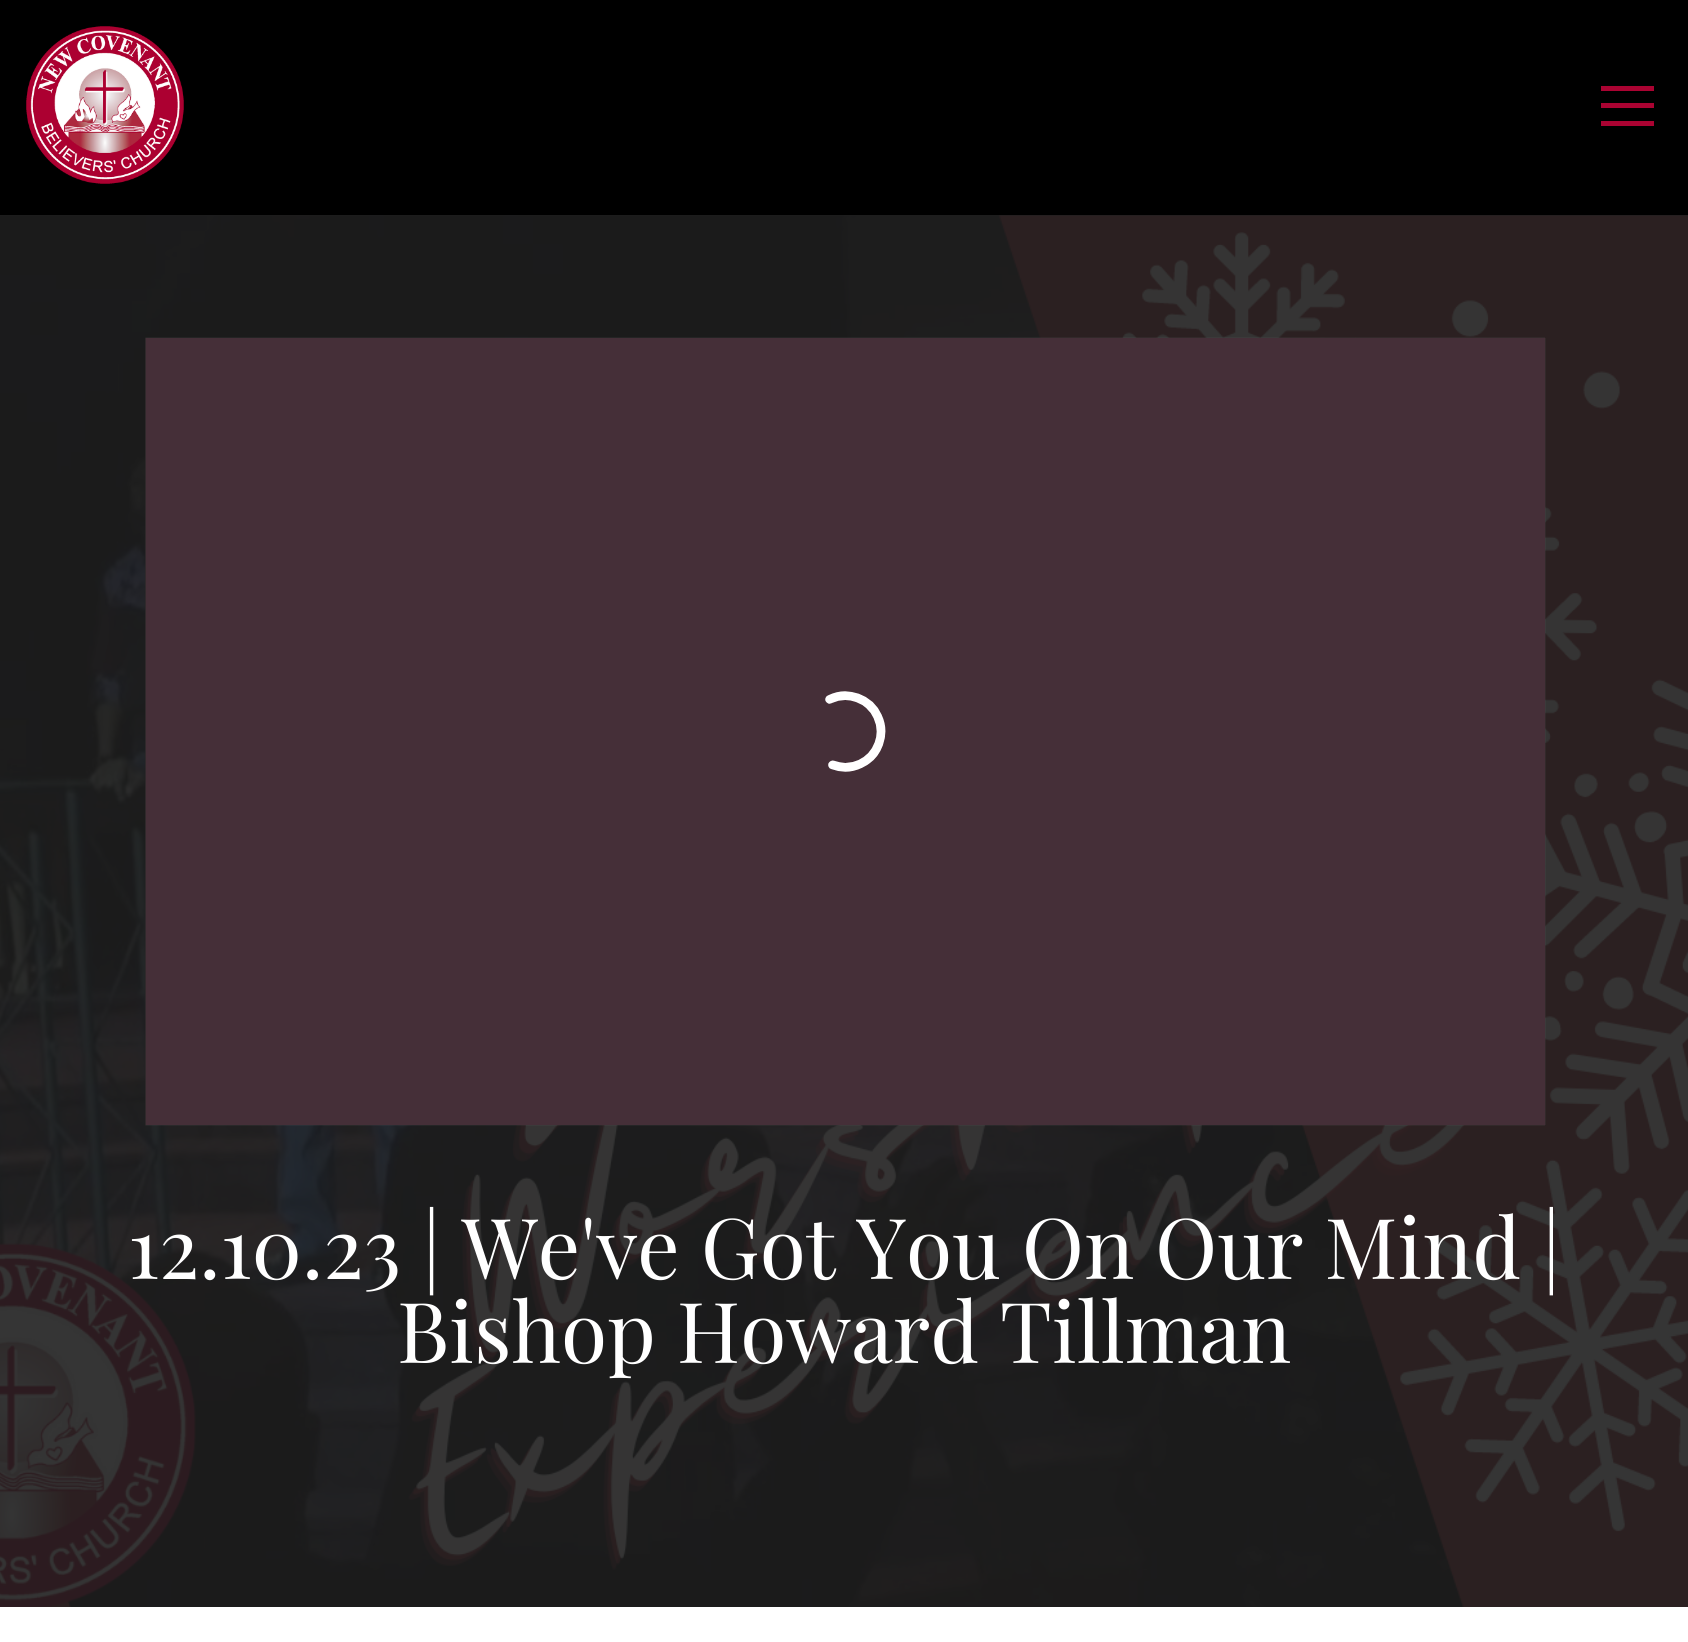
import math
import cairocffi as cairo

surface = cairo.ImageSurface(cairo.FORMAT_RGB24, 1688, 1642)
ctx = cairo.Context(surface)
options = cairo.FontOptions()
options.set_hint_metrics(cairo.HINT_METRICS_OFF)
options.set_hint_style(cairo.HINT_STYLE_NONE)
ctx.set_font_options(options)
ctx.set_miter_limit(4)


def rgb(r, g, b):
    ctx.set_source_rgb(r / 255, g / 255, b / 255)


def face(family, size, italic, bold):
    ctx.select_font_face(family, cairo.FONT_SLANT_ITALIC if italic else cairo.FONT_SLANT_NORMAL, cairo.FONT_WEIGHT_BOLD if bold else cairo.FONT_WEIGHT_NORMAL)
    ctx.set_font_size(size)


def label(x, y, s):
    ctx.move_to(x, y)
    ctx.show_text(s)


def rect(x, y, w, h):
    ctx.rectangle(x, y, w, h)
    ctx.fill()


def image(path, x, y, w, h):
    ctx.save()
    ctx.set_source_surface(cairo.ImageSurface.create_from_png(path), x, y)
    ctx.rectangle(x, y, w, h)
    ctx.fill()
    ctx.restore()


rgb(0, 0, 0)
ctx.paint()
image('image0.png', 26, 26, 158, 158)
rgb(170, 3, 50)
rect(1601, 86, 53, 5)
rect(1601, 103, 53, 5)
rect(1601, 121, 53, 5)
rgb(30, 30, 30)
rect(0, 215, 1688, 1)
image('image1.png', 0, 215, 1688, 1392)
image('image2.png', 145, 337, 1401, 789)
face('Playfair Display', 84, 0, 0)
rgb(255, 255, 255)
label(128, 1279, '12.10.23 | We\'ve Got You On Our Mind |')
label(397, 1363, 'Bishop Howard Tillman')
rect(0, 1607, 1688, 35)
surface.write_to_png('render.png')
